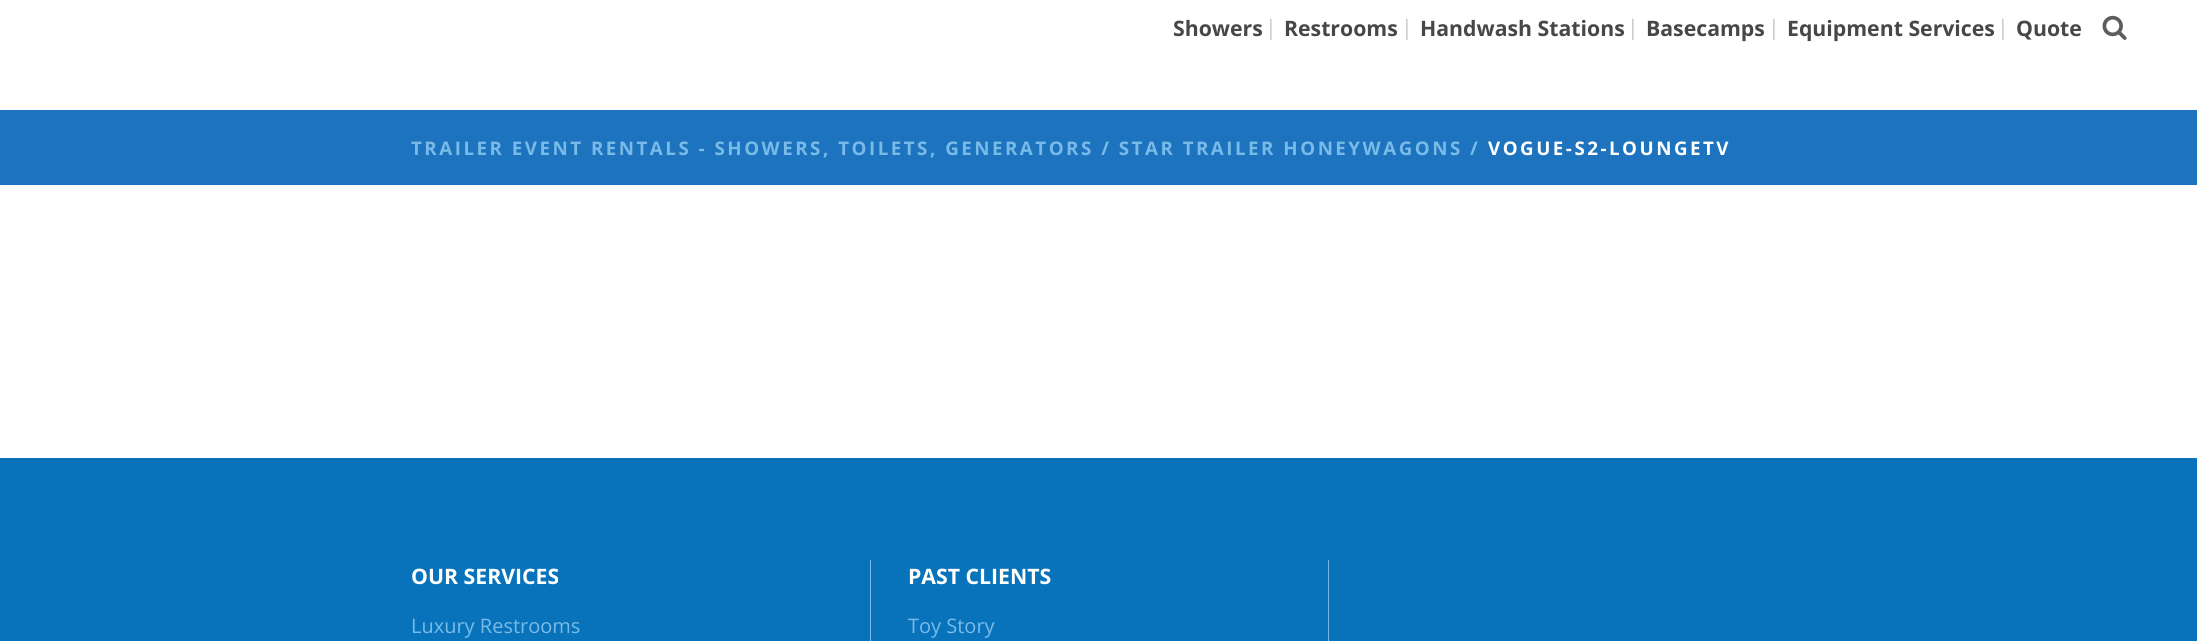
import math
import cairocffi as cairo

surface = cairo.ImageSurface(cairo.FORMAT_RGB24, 2197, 641)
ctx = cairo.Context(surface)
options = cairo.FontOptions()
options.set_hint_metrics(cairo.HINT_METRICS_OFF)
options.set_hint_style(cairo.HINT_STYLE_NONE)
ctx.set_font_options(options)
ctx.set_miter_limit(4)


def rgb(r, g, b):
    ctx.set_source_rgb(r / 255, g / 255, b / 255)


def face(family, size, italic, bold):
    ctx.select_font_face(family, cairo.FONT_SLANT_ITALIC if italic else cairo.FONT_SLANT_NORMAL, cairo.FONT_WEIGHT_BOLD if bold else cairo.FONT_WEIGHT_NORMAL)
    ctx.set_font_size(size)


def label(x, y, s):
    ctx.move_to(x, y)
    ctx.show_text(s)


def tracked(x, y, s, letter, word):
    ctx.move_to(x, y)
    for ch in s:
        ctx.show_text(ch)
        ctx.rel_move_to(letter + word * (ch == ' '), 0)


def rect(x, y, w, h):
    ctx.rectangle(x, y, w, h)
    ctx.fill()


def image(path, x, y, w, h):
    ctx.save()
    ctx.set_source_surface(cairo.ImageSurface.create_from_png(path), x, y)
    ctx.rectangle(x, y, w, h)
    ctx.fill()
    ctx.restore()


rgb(255, 255, 255)
ctx.paint()
face('Open Sans', 21.25, 0, 1)
rgb(71, 71, 71)
label(1173, 36, 'Showers')
face('Open Sans', 21.25, 0, 0)
rgb(198, 198, 198)
label(1265, 35, '|')
face('Open Sans', 21.25, 0, 1)
rgb(71, 71, 71)
label(1284, 36, 'Restrooms')
face('Open Sans', 21.25, 0, 0)
rgb(198, 198, 198)
label(1401, 35, '|')
face('Open Sans', 21.25, 0, 1)
rgb(71, 71, 71)
label(1420, 36, 'Handwash Stations')
face('Open Sans', 21.25, 0, 0)
rgb(198, 198, 198)
label(1627, 35, '|')
face('Open Sans', 21.25, 0, 1)
rgb(71, 71, 71)
label(1646, 36, 'Basecamps')
face('Open Sans', 21.25, 0, 0)
rgb(198, 198, 198)
label(1768, 35, '|')
face('Open Sans', 21.25, 0, 1)
rgb(71, 71, 71)
label(1787, 36, 'Equipment Services')
face('Open Sans', 21.25, 0, 0)
rgb(198, 198, 198)
label(1997, 35, '|')
face('Open Sans', 21.25, 0, 1)
rgb(71, 71, 71)
label(2016, 36, 'Quote')
image('image0.png', 2102, 15, 25, 25)
rgb(30, 115, 190)
rect(0, 110, 2197, 75)
face('Open Sans', 18.75, 0, 1)
rgb(120, 187, 232)
tracked(411, 155, 'TRAILER EVENT RENTALS - SHOWERS, TOILETS, GENERATORS / STAR TRAILER HONEYWAGONS /', 2.5, 0)
rgb(255, 255, 255)
tracked(1488, 155, 'VOGUE-S2-LOUNGETV', 2.5, 0)
rgb(8, 114, 186)
rect(0, 458, 2197, 183)
face('Open Sans', 21.25, 0, 1)
rgb(255, 255, 255)
label(411, 584, 'OUR SERVICES')
face('Open Sans', 20, 0, 0)
rgb(120, 187, 232)
label(411, 633, 'Luxury Restrooms')
rect(870, 560, 1, 81)
face('Open Sans', 21.25, 0, 1)
rgb(255, 255, 255)
label(908, 584, 'PAST CLIENTS')
face('Open Sans', 20, 0, 0)
rgb(120, 187, 232)
label(908, 633, 'Toy Story')
rect(1328, 560, 1, 81)
surface.write_to_png('render.png')
